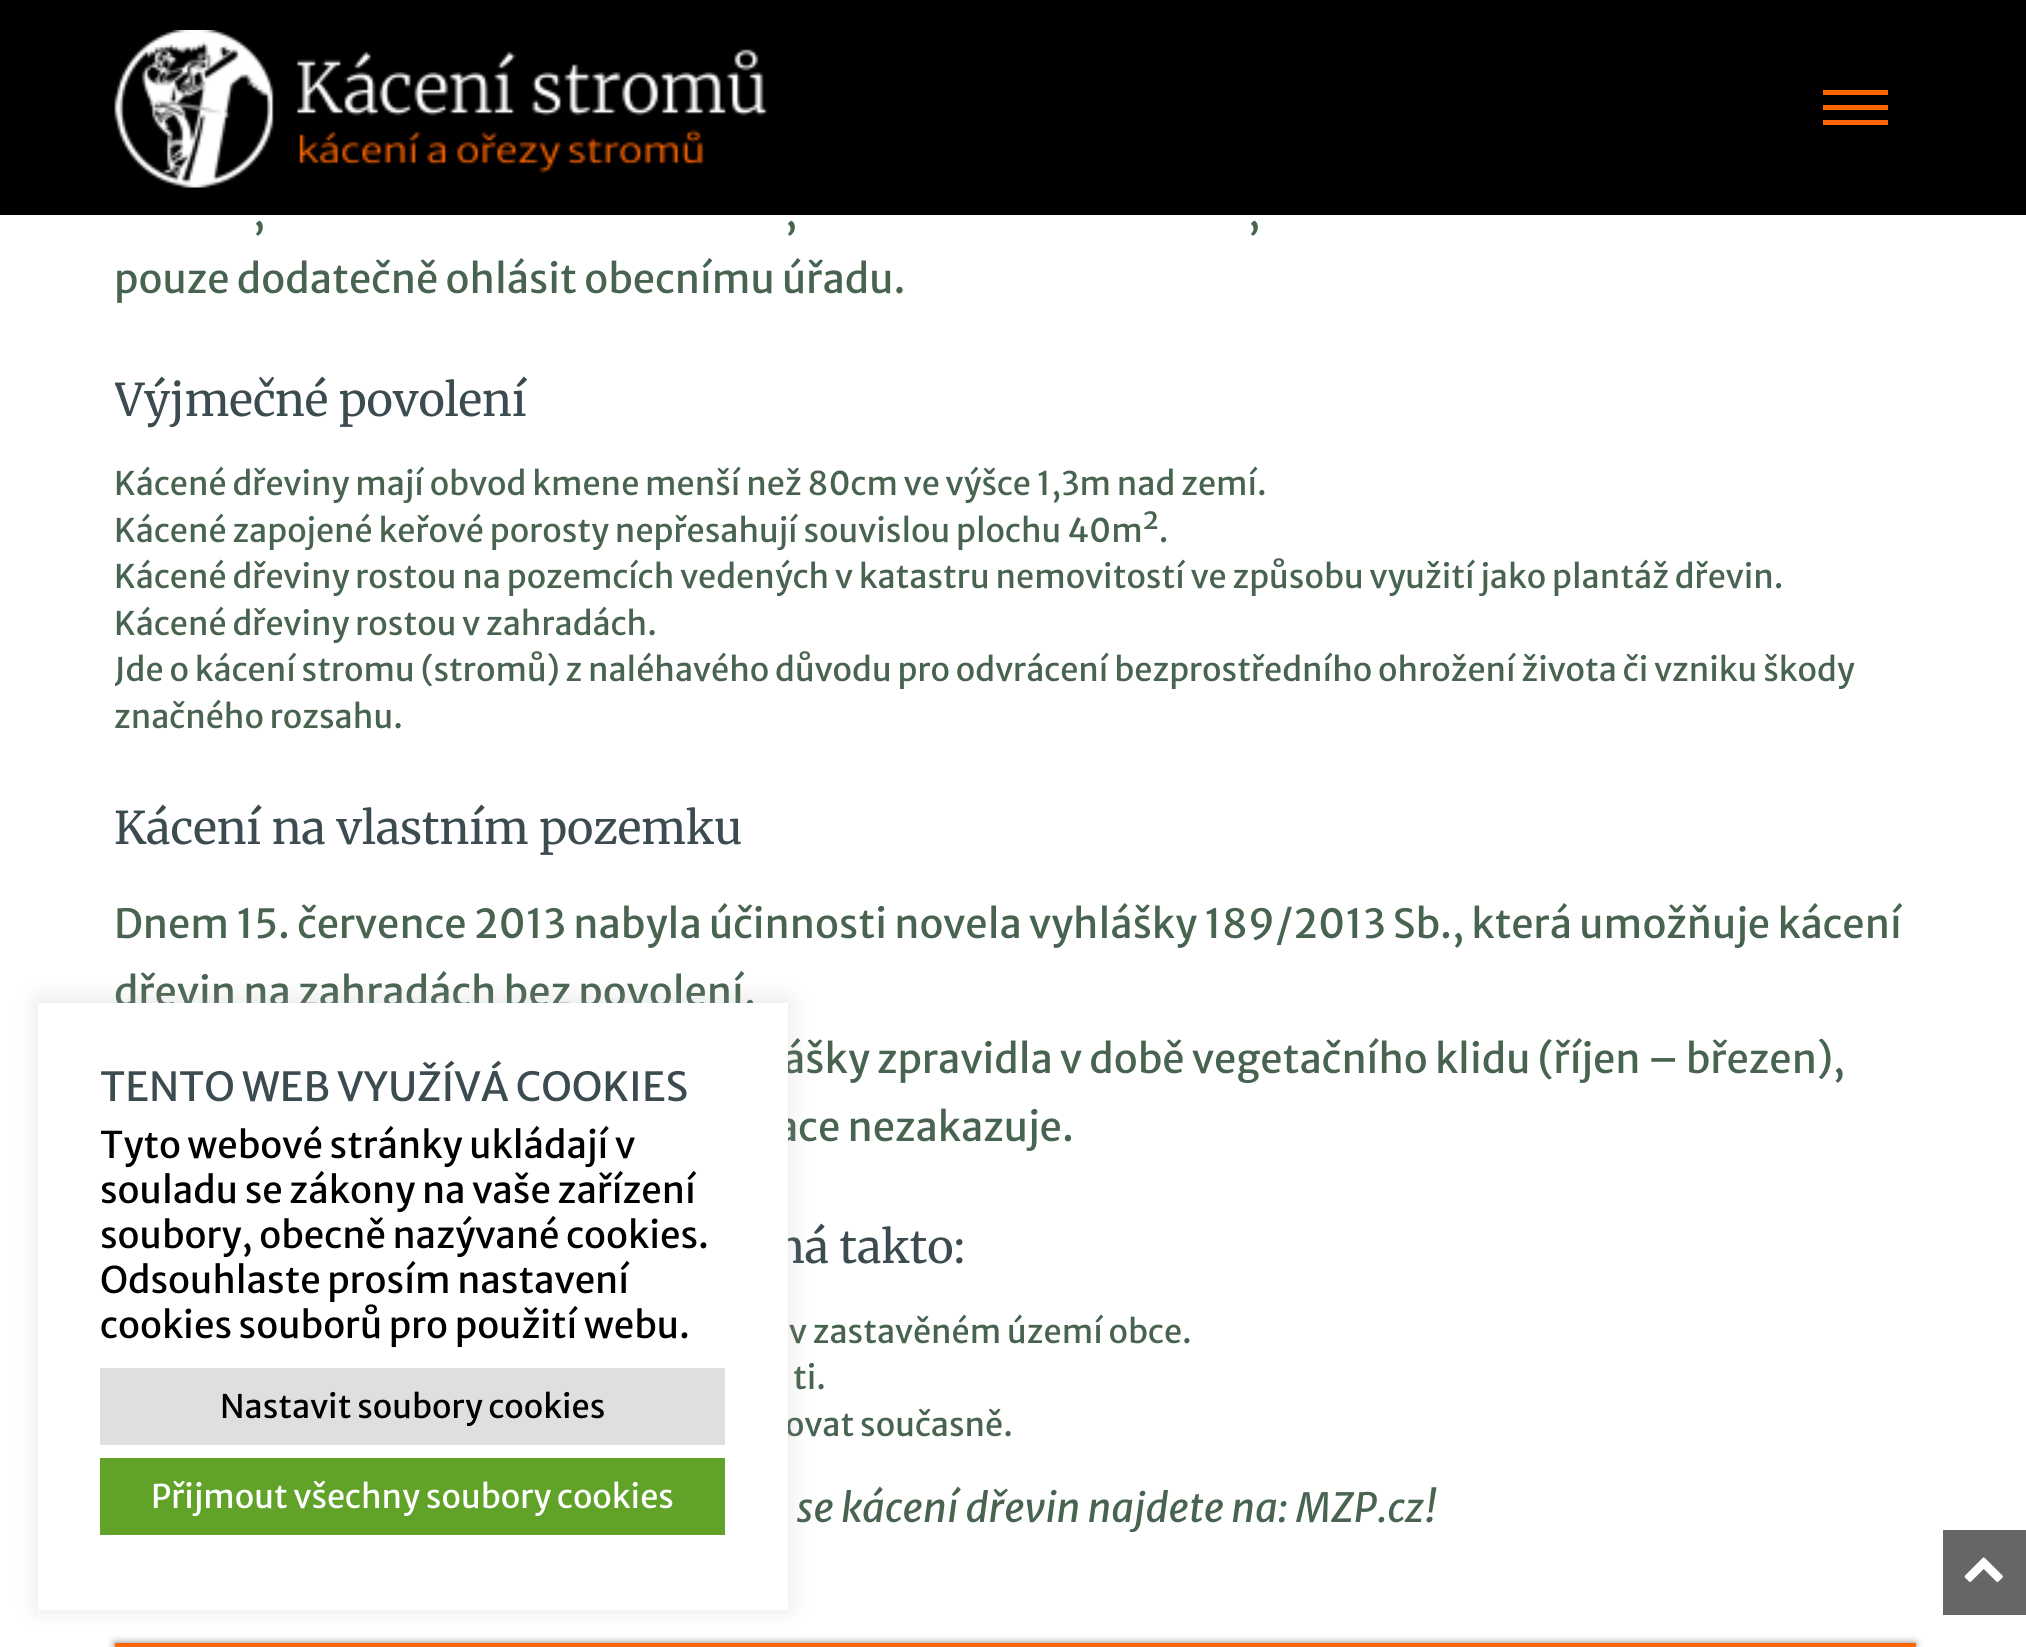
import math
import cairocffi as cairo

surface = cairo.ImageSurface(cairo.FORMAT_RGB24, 2026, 1647)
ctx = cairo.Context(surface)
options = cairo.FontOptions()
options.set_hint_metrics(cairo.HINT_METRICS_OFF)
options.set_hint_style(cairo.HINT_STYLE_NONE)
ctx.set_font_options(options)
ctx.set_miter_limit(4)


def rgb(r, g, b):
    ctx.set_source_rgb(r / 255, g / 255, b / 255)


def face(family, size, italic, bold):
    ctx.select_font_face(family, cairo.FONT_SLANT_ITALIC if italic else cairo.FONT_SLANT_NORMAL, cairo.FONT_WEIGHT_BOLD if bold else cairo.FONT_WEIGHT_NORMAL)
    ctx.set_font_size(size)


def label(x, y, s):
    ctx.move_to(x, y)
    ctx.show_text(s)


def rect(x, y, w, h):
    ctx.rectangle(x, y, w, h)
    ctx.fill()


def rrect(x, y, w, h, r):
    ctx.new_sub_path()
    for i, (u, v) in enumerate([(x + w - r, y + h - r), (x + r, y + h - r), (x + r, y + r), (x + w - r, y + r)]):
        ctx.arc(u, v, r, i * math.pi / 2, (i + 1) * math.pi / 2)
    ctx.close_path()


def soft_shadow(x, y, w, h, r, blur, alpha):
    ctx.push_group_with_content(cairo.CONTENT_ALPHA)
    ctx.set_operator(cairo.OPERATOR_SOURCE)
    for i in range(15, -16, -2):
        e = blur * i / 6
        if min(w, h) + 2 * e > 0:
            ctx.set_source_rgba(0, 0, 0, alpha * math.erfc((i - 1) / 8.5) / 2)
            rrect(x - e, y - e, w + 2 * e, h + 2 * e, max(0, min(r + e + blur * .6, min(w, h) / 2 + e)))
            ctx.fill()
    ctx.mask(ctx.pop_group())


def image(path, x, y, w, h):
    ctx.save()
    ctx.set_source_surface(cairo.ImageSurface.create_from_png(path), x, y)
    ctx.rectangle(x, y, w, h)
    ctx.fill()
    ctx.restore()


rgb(255, 255, 255)
ctx.paint()
rgb(0, 0, 0)
rect(0, 0, 2026, 215)
image('image0.png', 114, 30, 654, 158)
rgb(255, 102, 0)
rect(1823, 90, 65, 5)
rect(1823, 105, 65, 5)
rect(1823, 120, 65, 5)
face('Merriweather Sans', 40, 0, 0)
rgb(72, 99, 80)
label(253, 226, ',')
label(785, 226, ',')
label(1248, 226, ',')
label(114, 293, 'pouze dodatečně ohlásit obecnímu úřadu.')
ctx.save()
ctx.rectangle(115, 0, 1800, 1593)
ctx.clip()
face('Merriweather Light', 45, 0, 0)
rgb(59, 75, 80)
label(114, 416, 'Výjme')
ctx.restore()
face('Merriweather', 45, 0, 0)
rgb(59, 75, 80)
label(253, 416, 'č')
face('Merriweather Light', 45, 0, 0)
label(275, 416, 'né povolení')
face('Merriweather Sans', 32.5, 0, 0)
rgb(72, 99, 80)
label(114, 495, 'Kácené dřeviny mají obvod kmene menší než 80cm ve výšce 1,3m nad zemí.')
label(114, 542, 'Kácené zapojené keřové porosty nepřesahují souvislou plochu 40m².')
label(114, 588, 'Kácené dřeviny rostou na pozemcích vedených v katastru nemovitostí ve způsobu využití jako plantáž dřevin.')
label(114, 635, 'Kácené dřeviny rostou v zahradách.')
ctx.save()
ctx.rectangle(115, 0, 1800, 1593)
ctx.clip()
label(114, 681, 'Jde o kácení stromu (stromů) z naléhavého důvodu pro odvrácení bezprostředního ohrožení života či vzniku škody')
ctx.restore()
label(114, 728, 'značného rozsahu.')
face('Merriweather Light', 45, 0, 0)
rgb(59, 75, 80)
label(114, 844, 'Kácení na vlastním pozemku')
face('Merriweather Sans', 40, 0, 0)
rgb(72, 99, 80)
label(114, 938, 'Dnem 15. července 2013 nabyla účinnosti novela vyhlášky 189/2013 Sb., která umožňuje kácení')
label(114, 1006, 'dřevin na zahradách bez povolení.')
label(783, 1073, 'ášky zpravidla v době vegetačního klidu (říjen – březen),')
label(776, 1141, 'ace nezakazuje.')
face('Merriweather Light', 45, 0, 0)
rgb(59, 75, 80)
label(775, 1263, 'ná takto:')
face('Merriweather Sans', 32.5, 0, 0)
rgb(72, 99, 80)
label(789, 1343, 'v zastavěném území obce.')
label(793, 1389, 'ti.')
label(785, 1436, 'ovat současně.')
face('Merriweather Sans', 40, 1, 0)
label(796, 1522, 'se kácení dřevin najdete na: MZP.cz!')
rgb(0, 0, 0)
soft_shadow(115, 1643, 1800, 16, 0, 4, 0.5)
rgb(255, 102, 0)
rect(1908, 1643, 8, 4)
rect(115, 1643, 1793, 4)
rgb(102, 102, 102)
rect(1943, 1530, 83, 85)
image('image1.png', 1964, 1557, 39, 25)
rgb(172, 171, 171)
soft_shadow(38, 1000, 750, 608, 0, 12.5, 0.3)
rgb(255, 255, 255)
rect(38, 1003, 750, 607)
face('Merriweather Sans', 40, 0, 0)
rgb(59, 75, 80)
label(100, 1101, 'TENTO WEB VYUŽÍVÁ COOKIES')
face('Merriweather Sans', 36.7, 0, 0)
rgb(0, 0, 0)
label(100, 1158, 'Tyto webové stránky ukládají v')
label(100, 1203, 'souladu se zákony na vaše zařízení')
label(100, 1248, 'soubory, obecně nazývané cookies.')
label(100, 1293, 'Odsouhlaste prosím nastavení')
label(100, 1338, 'cookies souborů pro použití webu.')
rgb(222, 223, 224)
rect(100, 1368, 625, 77)
face('Merriweather Sans', 32.5, 0, 0)
rgb(0, 0, 0)
label(220, 1418, 'Nastavit soubory cookies')
rgb(97, 162, 41)
rect(100, 1458, 625, 77)
rgb(255, 255, 255)
label(151, 1508, 'Přijmout všechny soubory cookies')
surface.write_to_png('render.png')
